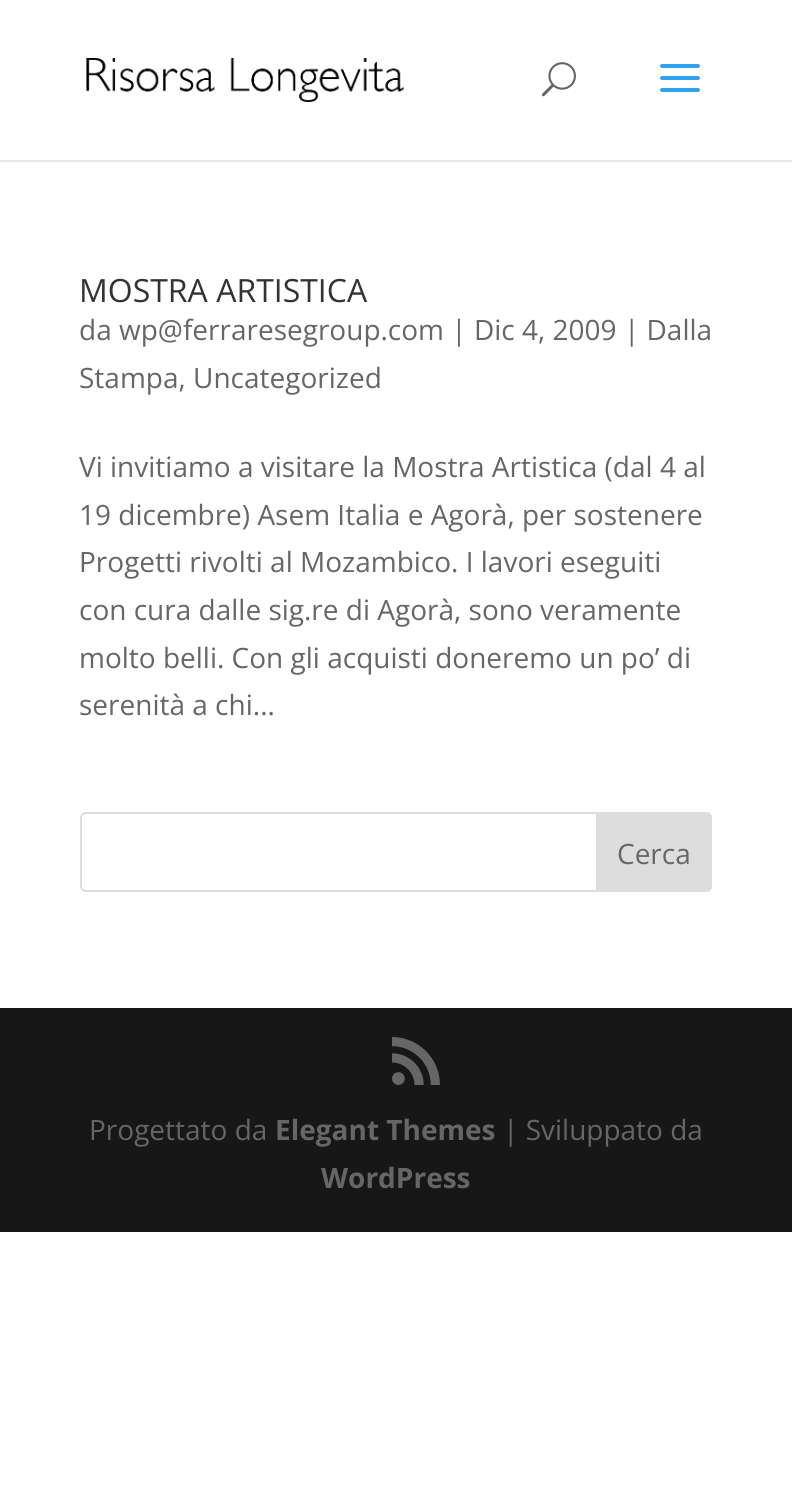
import math
import cairocffi as cairo

surface = cairo.ImageSurface(cairo.FORMAT_RGB24, 792, 1486)
ctx = cairo.Context(surface)
options = cairo.FontOptions()
options.set_hint_metrics(cairo.HINT_METRICS_OFF)
options.set_hint_style(cairo.HINT_STYLE_NONE)
ctx.set_font_options(options)
ctx.set_miter_limit(4)


def rgb(r, g, b):
    ctx.set_source_rgb(r / 255, g / 255, b / 255)


def face(family, size, italic, bold):
    ctx.select_font_face(family, cairo.FONT_SLANT_ITALIC if italic else cairo.FONT_SLANT_NORMAL, cairo.FONT_WEIGHT_BOLD if bold else cairo.FONT_WEIGHT_NORMAL)
    ctx.set_font_size(size)


def label(x, y, s):
    ctx.move_to(x, y)
    ctx.show_text(s)


def rect(x, y, w, h):
    ctx.rectangle(x, y, w, h)
    ctx.fill()


def rrect(x, y, w, h, r):
    ctx.new_sub_path()
    for i, (u, v) in enumerate([(x + w - r, y + h - r), (x + r, y + h - r), (x + r, y + r), (x + w - r, y + r)]):
        ctx.arc(u, v, r, i * math.pi / 2, (i + 1) * math.pi / 2)
    ctx.close_path()


def image(path, x, y, w, h):
    ctx.save()
    ctx.set_source_surface(cairo.ImageSurface.create_from_png(path), x, y)
    ctx.rectangle(x, y, w, h)
    ctx.fill()
    ctx.restore()


rgb(255, 255, 255)
ctx.paint()
rgb(230, 230, 230)
rect(0, 160, 792, 2)
image('image0.png', 86, 58, 318, 44)
image('image1.png', 541, 62, 35, 35)
image('image2.png', 660, 64, 40, 28)
face('Open Sans', 32, 0, 0)
rgb(51, 51, 51)
label(79, 302, 'MOSTRA ARTISTICA')
face('Open Sans', 28, 0, 0)
rgb(102, 102, 102)
label(79, 340, 'da wp@ferraresegroup.com | Dic 4, 2009 | Dalla')
label(79, 388, 'Stampa, Uncategorized')
label(79, 477, 'Vi invitiamo a visitare la Mostra Artistica (dal 4 al')
label(79, 525, '19 dicembre) Asem Italia e Agorà, per sostenere')
label(79, 572, 'Progetti rivolti al Mozambico. I lavori eseguiti')
label(79, 620, 'con cura dalle sig.re di Agorà, sono veramente')
label(79, 668, 'molto belli. Con gli acquisti doneremo un po’ di')
label(79, 715, 'serenità a chi...')
rrect(81, 813, 630, 78, 5)
rgb(221, 221, 221)
ctx.stroke()
ctx.new_path()
ctx.move_to(597, 813)
ctx.line_to(706, 813)
ctx.curve_to(709, 813, 711, 815, 711, 818)
ctx.line_to(711, 886)
ctx.curve_to(711, 889, 709, 891, 706, 891)
ctx.line_to(597, 891)
ctx.close_path()
ctx.fill_preserve()
ctx.stroke()
rgb(102, 102, 102)
label(617, 864, 'Cerca')
rgb(23, 23, 23)
rect(0, 1008, 792, 224)
image('image3.png', 392, 1037, 48, 48)
rgb(102, 102, 102)
label(89, 1140, 'Progettato da')
face('Open Sans', 28, 0, 1)
label(275, 1140, 'Elegant Themes')
face('Open Sans', 28, 0, 0)
label(503, 1140, '| Sviluppato da')
face('Open Sans', 28, 0, 1)
label(321, 1188, 'WordPress')
surface.write_to_png('render.png')
